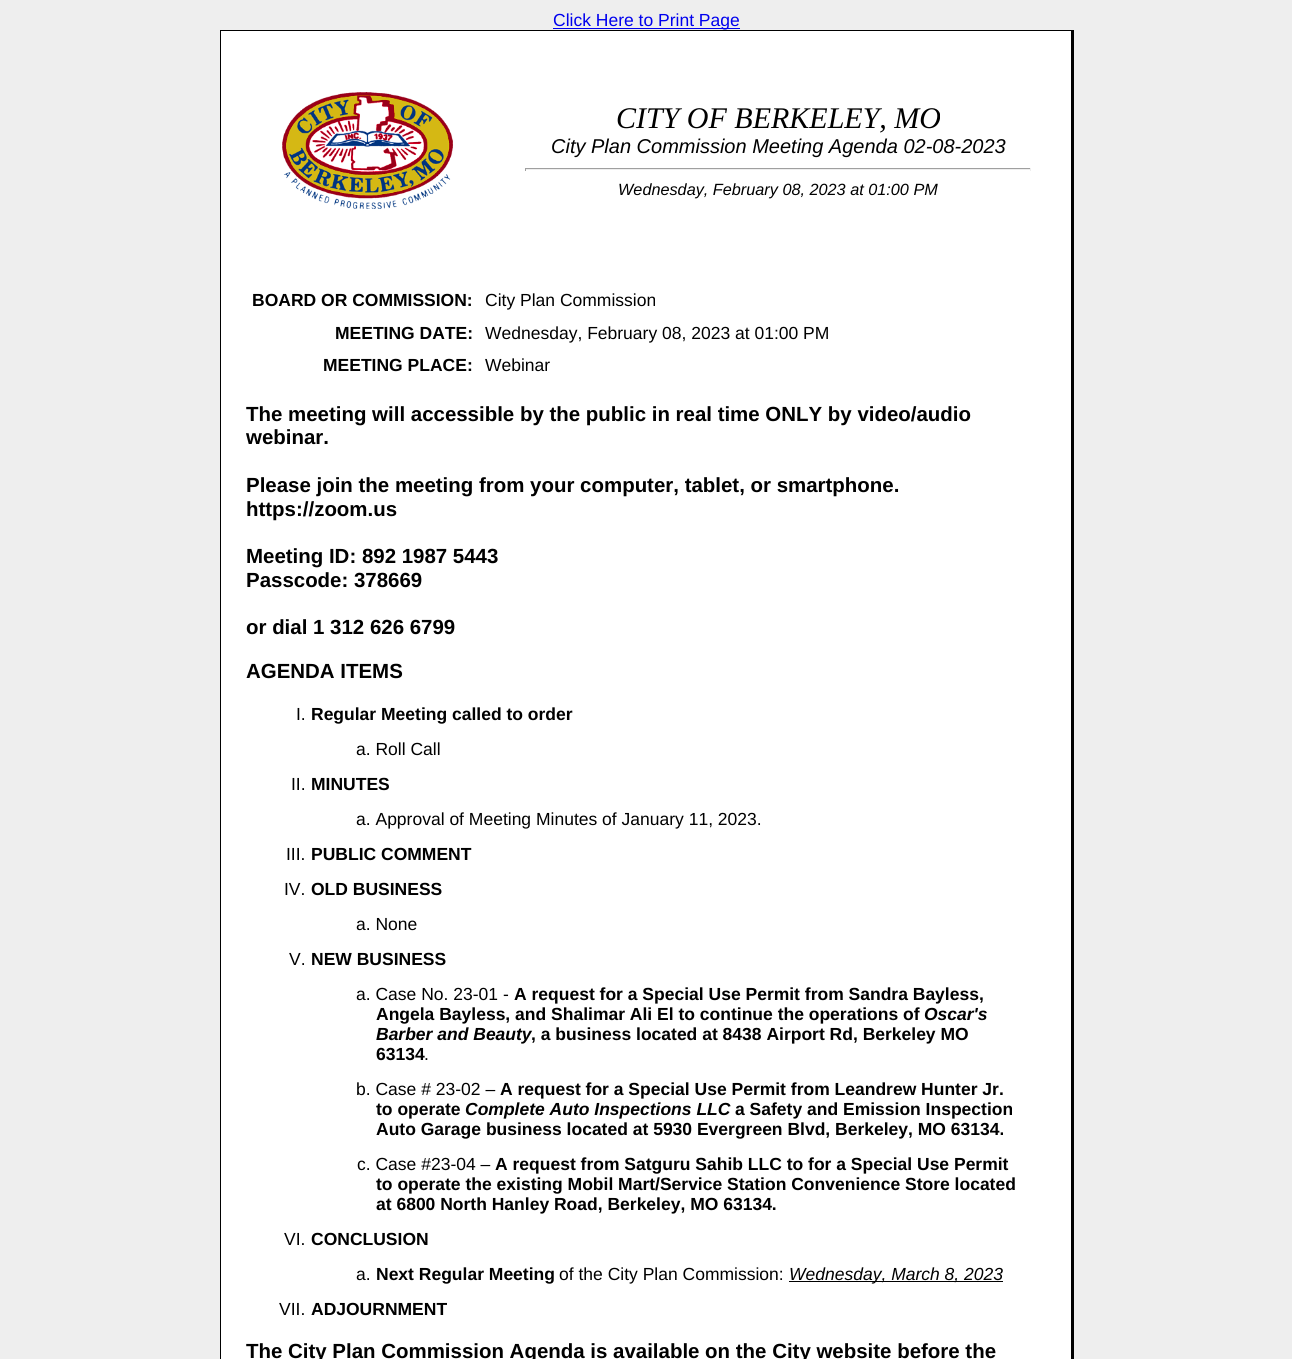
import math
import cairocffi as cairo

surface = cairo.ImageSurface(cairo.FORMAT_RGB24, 1292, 1359)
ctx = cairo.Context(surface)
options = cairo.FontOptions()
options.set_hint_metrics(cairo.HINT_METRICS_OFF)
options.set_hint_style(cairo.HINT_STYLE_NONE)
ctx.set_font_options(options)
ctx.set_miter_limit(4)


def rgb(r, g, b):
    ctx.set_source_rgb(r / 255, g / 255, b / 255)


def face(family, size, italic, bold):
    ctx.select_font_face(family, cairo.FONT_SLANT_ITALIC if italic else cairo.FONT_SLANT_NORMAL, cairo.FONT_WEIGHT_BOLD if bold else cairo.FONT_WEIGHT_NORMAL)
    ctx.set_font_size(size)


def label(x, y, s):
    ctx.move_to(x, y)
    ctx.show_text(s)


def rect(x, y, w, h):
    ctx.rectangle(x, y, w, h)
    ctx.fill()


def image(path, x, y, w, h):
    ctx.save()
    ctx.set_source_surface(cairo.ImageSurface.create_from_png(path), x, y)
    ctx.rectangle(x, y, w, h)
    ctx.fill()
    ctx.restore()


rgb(238, 238, 238)
ctx.paint()
rgb(0, 0, 238)
rect(553, 28, 187, 1)
face('Liberation Sans', 17.5, 0, 0)
label(553, 26, 'Click Here to Print Page')
rgb(255, 255, 255)
rect(221, 31, 850, 1328)
rgb(0, 0, 0)
rect(220, 30, 854, 1)
rect(1071, 30, 3, 1329)
rect(220, 30, 1, 1329)
image('image0.png', 282, 92, 171, 117)
face('Liberation Serif', 30, 1, 0)
label(616, 128, 'CITY OF BERKELEY, MO')
face('Liberation Sans', 20, 1, 0)
label(551, 153, 'City Plan Commission Meeting Agenda 02-08-2023')
rgb(159, 159, 159)
rect(525, 168, 506, 1)
rgb(238, 238, 238)
rect(1030, 168, 1, 3)
rect(525, 169, 506, 1)
rgb(159, 159, 159)
rect(525, 168, 1, 3)
face('Liberation Sans', 16.25, 1, 0)
rgb(0, 0, 0)
label(618, 195, 'Wednesday, February 08, 2023 at 01:00 PM')
face('Liberation Sans', 17.5, 0, 1)
label(252, 306, 'BOARD OR COMMISSION:')
face('Liberation Sans', 17.5, 0, 0)
label(485, 306, 'City Plan Commission')
face('Liberation Sans', 17.5, 0, 1)
label(335, 339, 'MEETING DATE:')
face('Liberation Sans', 17.5, 0, 0)
label(485, 339, 'Wednesday, February 08, 2023 at 01:00 PM')
face('Liberation Sans', 17.5, 0, 1)
label(323, 371, 'MEETING PLACE:')
face('Liberation Sans', 17.5, 0, 0)
label(485, 371, 'Webinar')
face('Liberation Sans', 20.45, 0, 1)
label(246, 421, 'The meeting will accessible by the public in real time ONLY by video/audio')
label(246, 444, 'webinar.')
label(246, 492, 'Please join the meeting from your computer, tablet, or smartphone.')
label(246, 516, 'https://zoom.us')
label(246, 563, 'Meeting ID: 892 1987 5443')
label(246, 587, 'Passcode: 378669')
label(246, 634, 'or dial 1 312 626 6799')
label(246, 678, 'AGENDA ITEMS')
face('Liberation Sans', 17.5, 0, 0)
label(296, 720, 'I.')
face('Liberation Sans', 17.5, 0, 1)
label(311, 720, 'Regular Meeting called to order')
face('Liberation Sans', 17.5, 0, 0)
label(356, 755, 'a. Roll Call')
label(291, 790, 'II.')
face('Liberation Sans', 17.5, 0, 1)
label(311, 790, 'MINUTES')
face('Liberation Sans', 17.5, 0, 0)
label(356, 825, 'a. Approval of Meeting Minutes of January 11, 2023.')
label(286, 860, 'III.')
face('Liberation Sans', 17.5, 0, 1)
label(311, 860, 'PUBLIC COMMENT')
face('Liberation Sans', 17.5, 0, 0)
label(284, 895, 'IV.')
face('Liberation Sans', 17.5, 0, 1)
label(311, 895, 'OLD BUSINESS')
face('Liberation Sans', 17.5, 0, 0)
label(356, 930, 'a. None')
label(289, 965, 'V.')
face('Liberation Sans', 17.5, 0, 1)
label(311, 965, 'NEW BUSINESS')
face('Liberation Sans', 17.5, 0, 0)
label(356, 1000, 'a. Case No. 23-01 -')
face('Liberation Sans', 17.5, 0, 1)
label(514, 1000, 'A request for a Special Use Permit from Sandra Bayless,')
label(376, 1020, 'Angela Bayless, and Shalimar Ali El to continue the operations of')
face('Liberation Sans', 17.5, 1, 1)
label(924, 1020, 'Oscar\'s')
label(376, 1040, 'Barber and Beauty')
face('Liberation Sans', 17.5, 0, 1)
label(531, 1040, ', a business located at 8438 Airport Rd, Berkeley MO')
label(376, 1060, '63134')
face('Liberation Sans', 17.5, 0, 0)
label(424, 1060, '.')
label(356, 1095, 'b. Case # 23-02 –')
face('Liberation Sans', 17.5, 0, 1)
label(500, 1095, 'A request for a Special Use Permit from Leandrew Hunter Jr.')
label(376, 1115, 'to operate')
face('Liberation Sans', 17.5, 1, 1)
label(465, 1115, 'Complete Auto Inspections LLC')
face('Liberation Sans', 17.5, 0, 1)
label(735, 1115, 'a Safety and Emission Inspection')
label(376, 1135, 'Auto Garage business located at 5930 Evergreen Blvd, Berkeley, MO 63134.')
face('Liberation Sans', 17.5, 0, 0)
label(357, 1170, 'c. Case #23-04 –')
face('Liberation Sans', 17.5, 0, 1)
label(495, 1170, 'A request from Satguru Sahib LLC to for a Special Use Permit')
label(376, 1190, 'to operate the existing Mobil Mart/Service Station Convenience Store located')
label(376, 1210, 'at 6800 North Hanley Road, Berkeley, MO 63134.')
face('Liberation Sans', 17.5, 0, 0)
label(284, 1245, 'VI.')
face('Liberation Sans', 17.5, 0, 1)
label(311, 1245, 'CONCLUSION')
face('Liberation Sans', 17.5, 0, 0)
label(356, 1280, 'a.')
face('Liberation Sans', 17.5, 0, 1)
label(376, 1280, 'Next Regular Meeting')
face('Liberation Sans', 17.5, 0, 0)
label(559, 1280, 'of the City Plan Commission:')
rect(789, 1281, 214, 1)
face('Liberation Sans', 17.5, 1, 0)
label(789, 1280, 'Wednesday, March 8, 2023')
face('Liberation Sans', 17.5, 0, 0)
label(279, 1315, 'VII.')
face('Liberation Sans', 17.5, 0, 1)
label(311, 1315, 'ADJOURNMENT')
face('Liberation Sans', 20.45, 0, 1)
label(246, 1358, 'The City Plan Commission Agenda is available on the City website before the')
surface.write_to_png('render.png')
